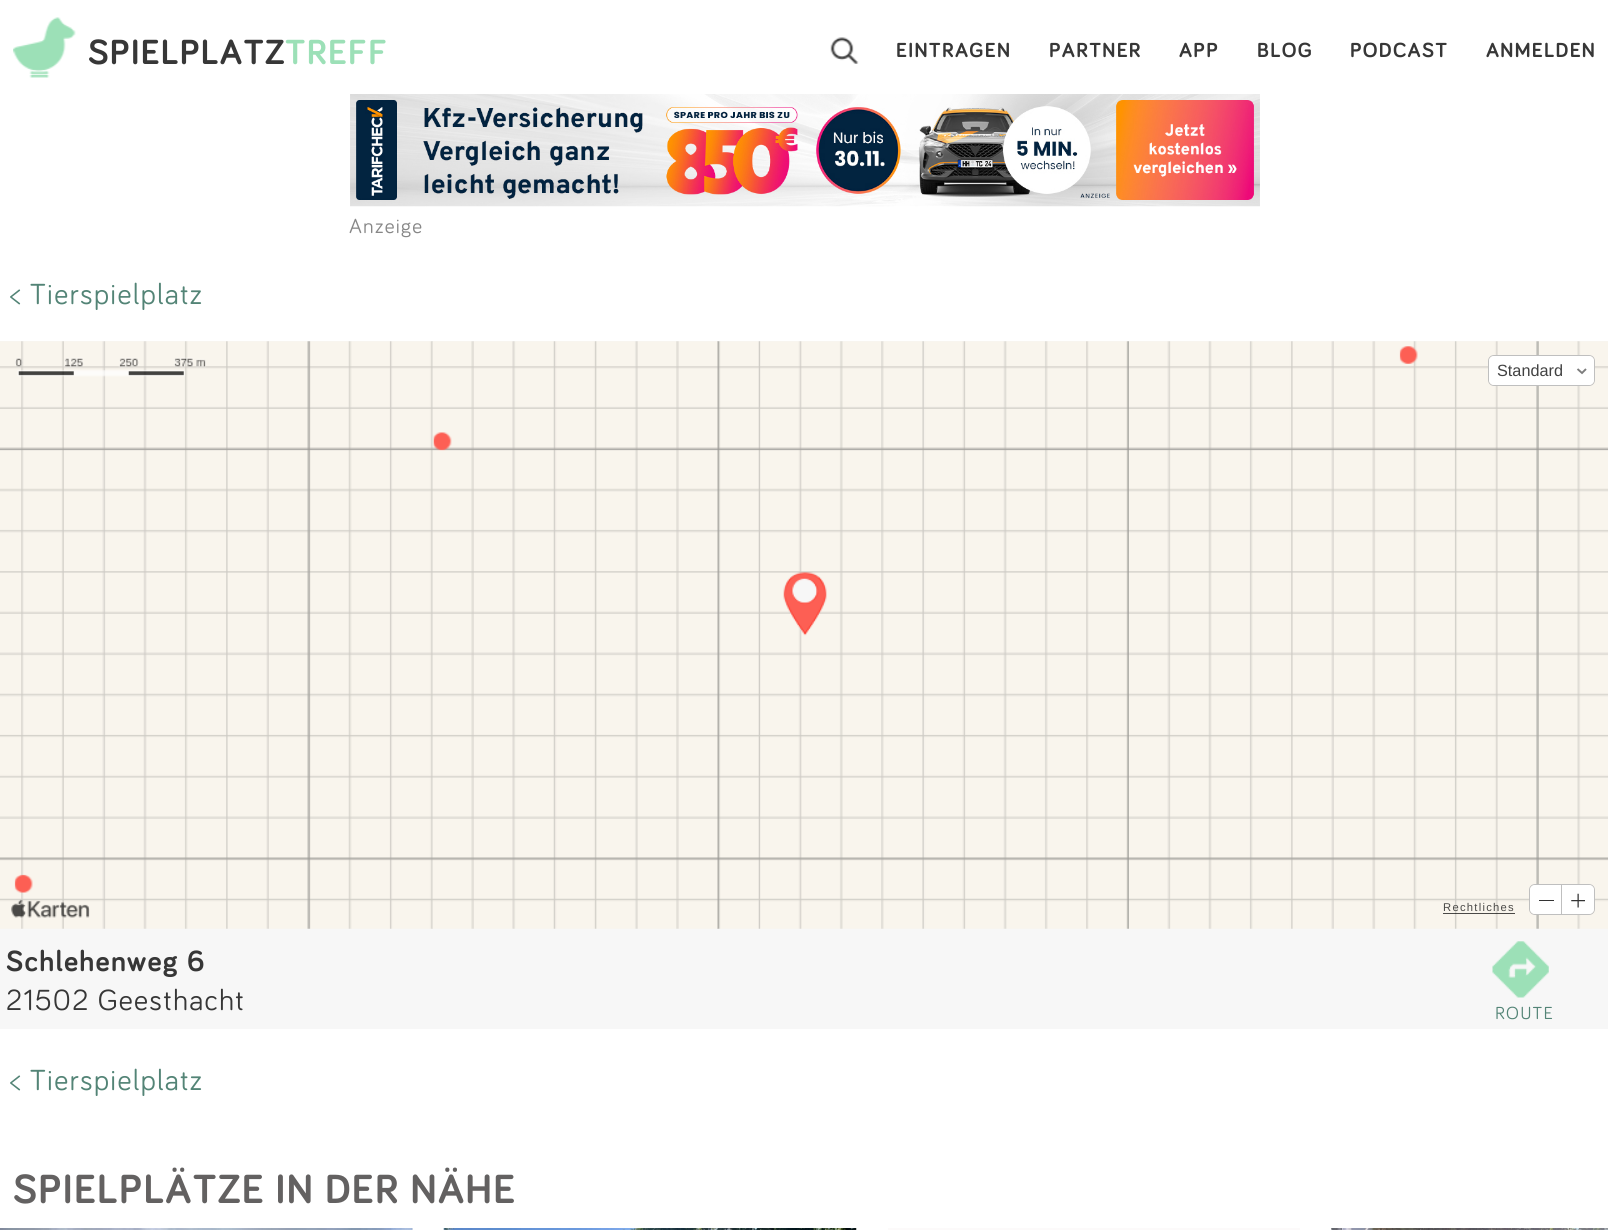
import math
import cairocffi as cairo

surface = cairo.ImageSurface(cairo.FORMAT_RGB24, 1608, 1230)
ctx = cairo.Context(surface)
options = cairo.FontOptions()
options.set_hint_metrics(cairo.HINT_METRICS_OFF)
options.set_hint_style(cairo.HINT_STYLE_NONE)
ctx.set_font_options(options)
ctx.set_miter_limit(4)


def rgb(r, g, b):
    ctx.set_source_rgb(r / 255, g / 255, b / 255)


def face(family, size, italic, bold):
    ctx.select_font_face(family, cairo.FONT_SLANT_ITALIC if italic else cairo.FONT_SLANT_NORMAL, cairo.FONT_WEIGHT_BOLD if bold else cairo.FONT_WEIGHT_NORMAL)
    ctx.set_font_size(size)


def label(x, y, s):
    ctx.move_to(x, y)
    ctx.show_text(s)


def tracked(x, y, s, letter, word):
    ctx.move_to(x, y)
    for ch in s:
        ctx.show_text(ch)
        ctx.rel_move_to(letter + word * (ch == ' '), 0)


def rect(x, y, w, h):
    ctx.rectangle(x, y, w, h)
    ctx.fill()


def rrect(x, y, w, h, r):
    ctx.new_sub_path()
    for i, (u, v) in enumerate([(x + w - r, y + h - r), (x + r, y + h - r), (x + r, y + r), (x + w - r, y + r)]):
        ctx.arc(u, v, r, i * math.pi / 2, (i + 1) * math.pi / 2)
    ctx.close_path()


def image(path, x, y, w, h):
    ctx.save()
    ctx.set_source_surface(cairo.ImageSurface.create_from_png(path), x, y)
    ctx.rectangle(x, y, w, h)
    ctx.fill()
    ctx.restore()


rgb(255, 255, 255)
ctx.paint()
image('image0.png', 13, 17, 63, 61)
face('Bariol', 36, 0, 1)
rgb(55, 55, 55)
tracked(88, 64, 'SPIELPLATZ', 1.25, 0)
rgb(156, 224, 183)
tracked(285, 64, 'TREFF', 1.25, 0)
image('image1.png', 830, 37, 29, 27)
face('Bariol', 21, 0, 1)
rgb(55, 55, 55)
tracked(896, 57, 'EINTRAGEN', 1.25, 0)
tracked(1049, 57, 'PARTNER', 1.25, 0)
tracked(1179, 57, 'APP', 1.25, 0)
tracked(1257, 57, 'BLOG', 1.25, 0)
tracked(1350, 57, 'PODCAST', 1.25, 0)
tracked(1486, 57, 'ANMELDEN', 1.25, 0)
image('image2.png', 350, 94, 910, 113)
face('Bariol', 21, 0, 0)
rgb(135, 135, 135)
tracked(349, 233, 'Anzeige', 1.25, 0)
face('Bariol', 30, 0, 0)
rgb(83, 132, 118)
tracked(10, 304, '< Tierspielplatz', 1.25, 0)
rgb(247, 247, 247)
rect(0, 341, 1608, 688)
image('image3.png', 0, 341, 1608, 588)
image('image4.png', 15, 357, 191, 20)
rrect(1488.5, 355.5, 106, 30, 5.5)
rgb(191, 191, 191)
ctx.set_line_width(1)
ctx.stroke()
rgb(255, 255, 255)
rrect(1489, 356, 105, 29, 5)
ctx.fill()
face('Liberation Sans', 16.25, 0, 0)
rgb(66, 66, 66)
label(1497, 376, 'Standard')
ctx.new_path()
ctx.move_to(1577.5, 369)
ctx.line_to(1582, 373)
ctx.line_to(1586, 369)
rgb(124, 124, 124)
ctx.set_line_width(1.9)
ctx.stroke()
image('image5.png', 11, 899, 79, 19)
face('Liberation Sans', 11.25, 0, 0)
rgb(74, 73, 71)
tracked(1443, 911, 'Rechtliches', 1.25, 0)
ctx.set_source_rgba(0, 0, 0, 0.7)
rect(1443, 913, 72, 1)
rrect(1529.5, 884.5, 65, 30, 5.5)
rgb(191, 191, 191)
ctx.set_line_width(1)
ctx.stroke()
rgb(255, 255, 255)
rrect(1530, 885, 64, 29, 5)
ctx.fill()
rgb(51, 51, 51)
rect(1539, 900, 15, 1)
rgb(191, 191, 191)
rect(1561, 885, 1, 29)
image('image6.png', 1571, 893, 14, 15)
face('Bariol', 30, 0, 1)
rgb(55, 55, 55)
tracked(6, 971, 'Schlehenweg 6', 1.25, 0)
face('Bariol', 30, 0, 0)
tracked(6, 1010, '21502 Geesthacht', 1.25, 0)
image('image7.png', 1492, 941, 57, 57)
face('Bariol', 18, 0, 0)
rgb(83, 132, 118)
tracked(1495, 1019, 'ROUTE', 1.25, 0)
face('Bariol', 30, 0, 0)
tracked(10, 1090, '< Tierspielplatz', 1.25, 0)
face('Bariol', 42, 0, 1)
rgb(99, 97, 97)
tracked(13, 1203, 'SPIELPLÄTZE IN DER NÄHE', 1.25, 0)
rgb(247, 247, 247)
rect(412, 1228, 1, 2)
image('image8.png', 0, 1228, 413, 2)
image('image9.png', 443, 1228, 414, 2)
rgb(252, 250, 250)
rect(888, 1228, 412, 2)
image('image10.png', 1331, 1228, 277, 2)
surface.write_to_png('render.png')
